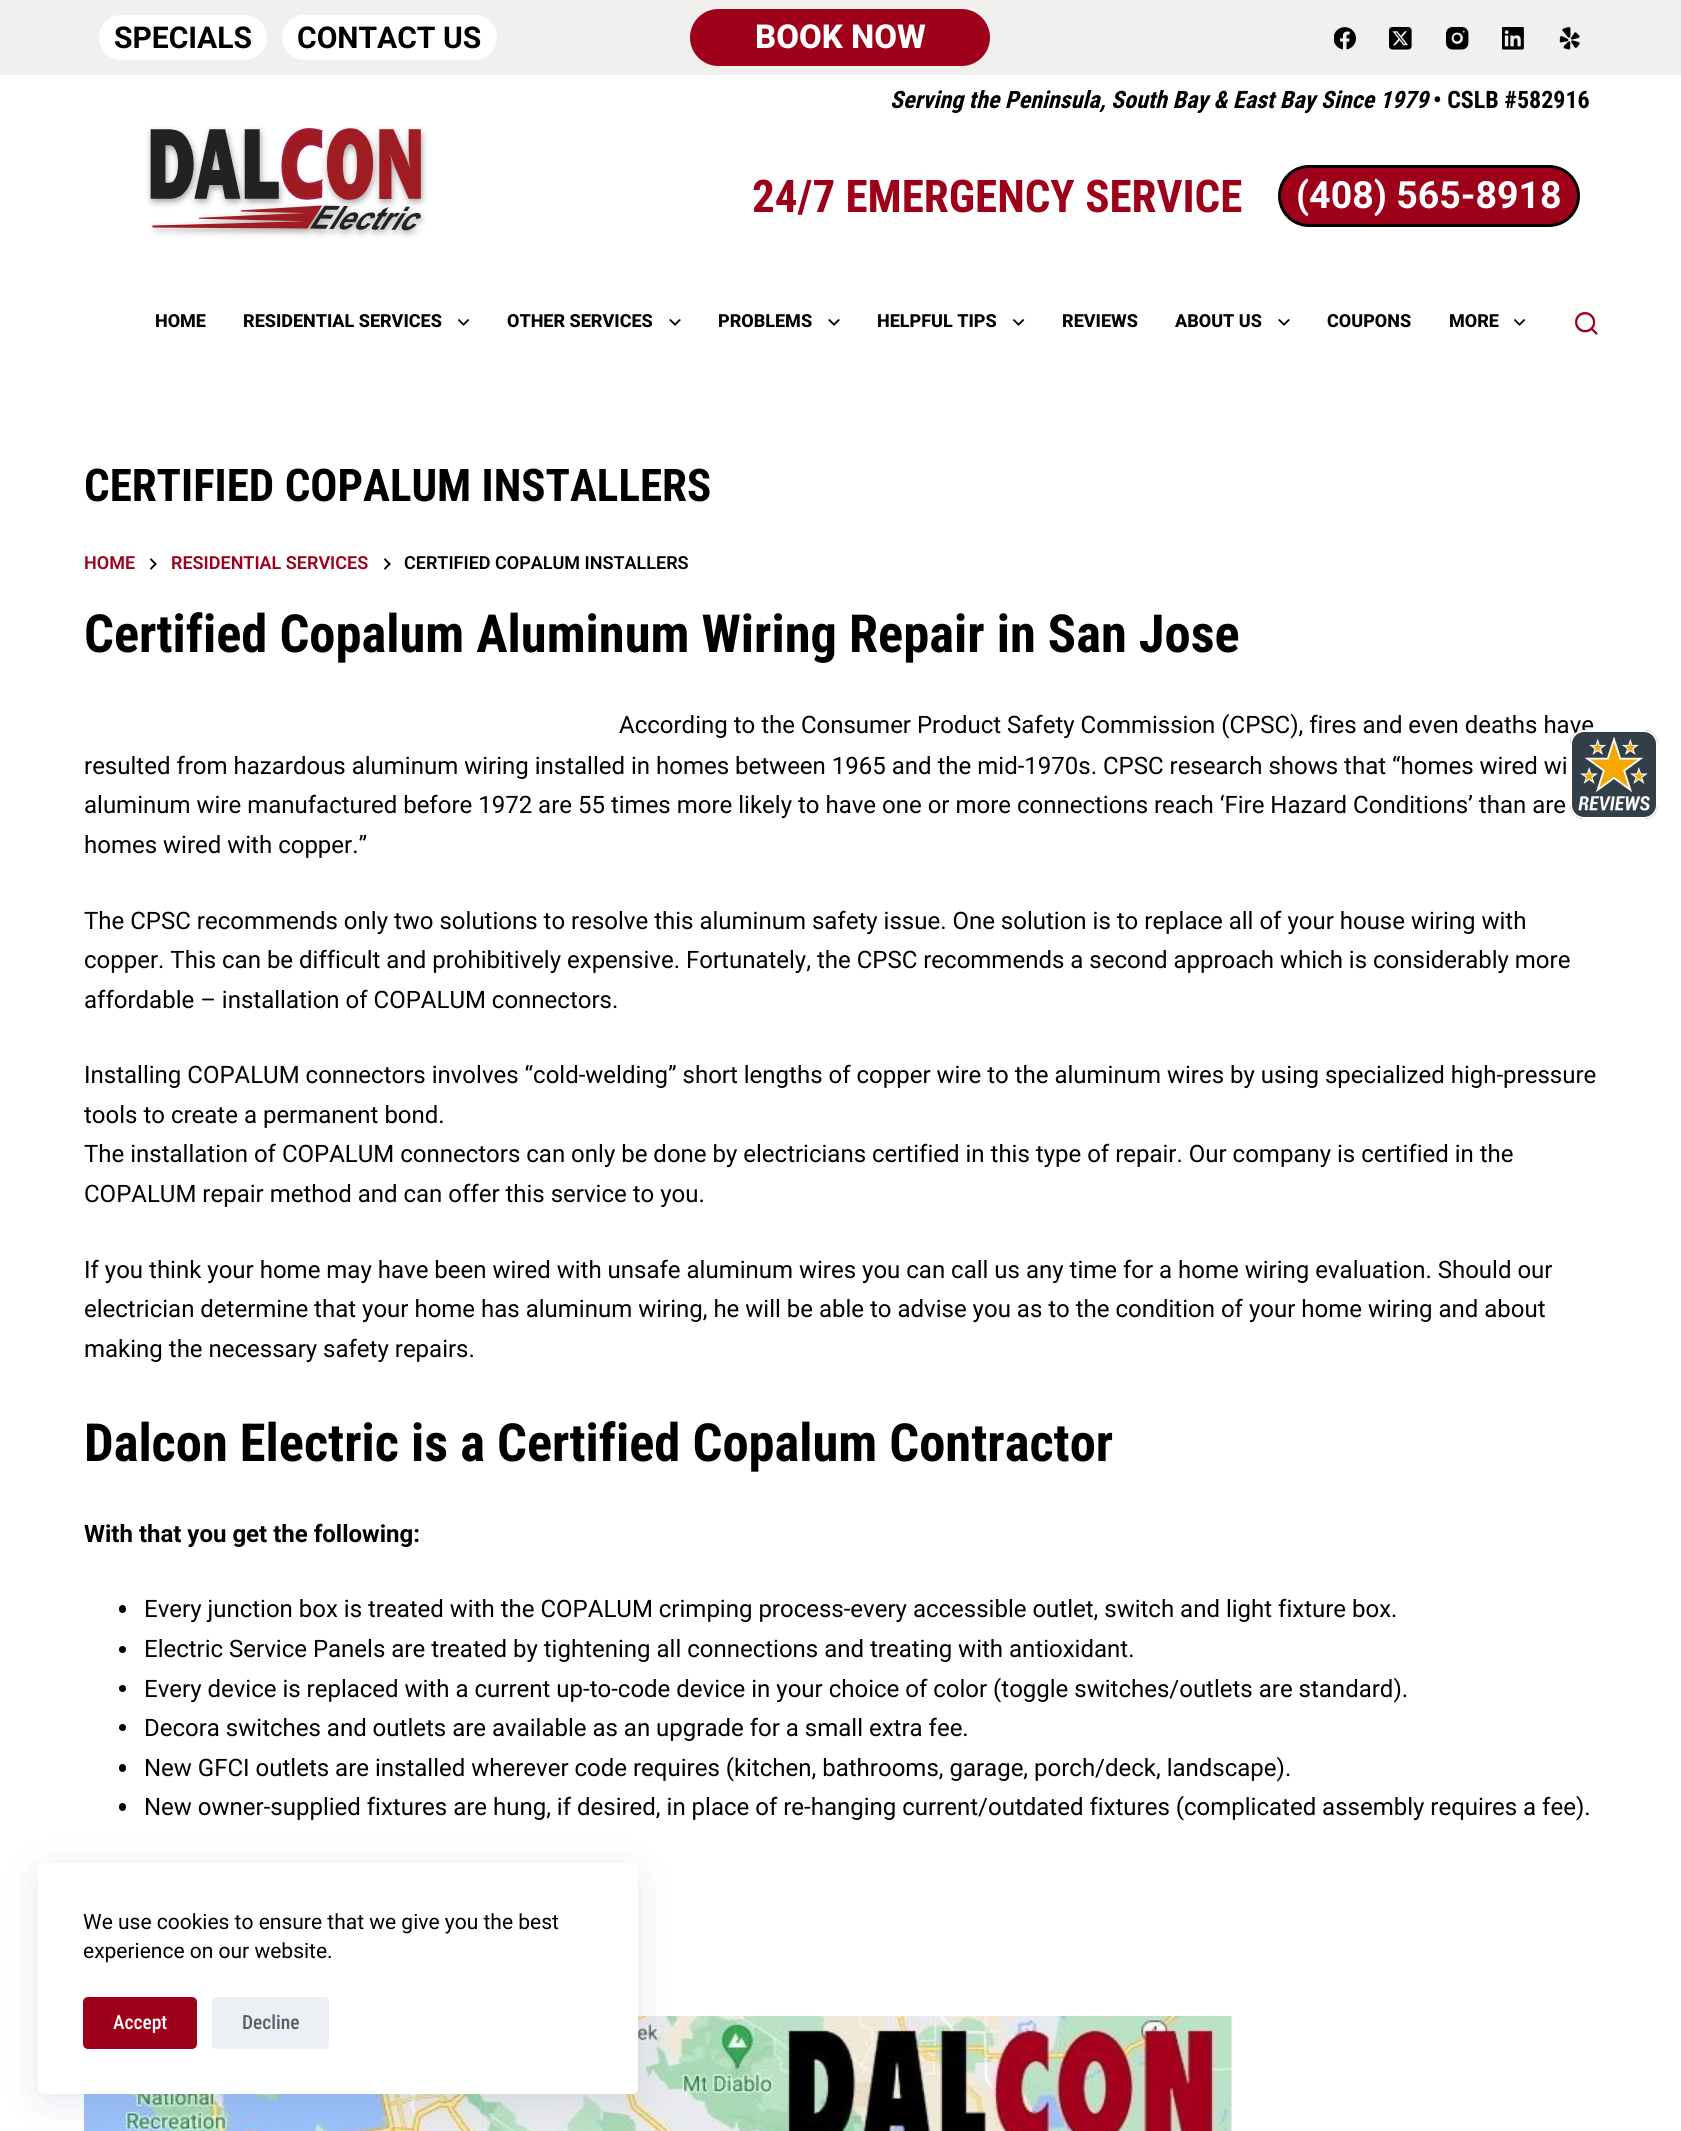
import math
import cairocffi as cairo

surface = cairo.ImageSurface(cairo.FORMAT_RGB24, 1681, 2131)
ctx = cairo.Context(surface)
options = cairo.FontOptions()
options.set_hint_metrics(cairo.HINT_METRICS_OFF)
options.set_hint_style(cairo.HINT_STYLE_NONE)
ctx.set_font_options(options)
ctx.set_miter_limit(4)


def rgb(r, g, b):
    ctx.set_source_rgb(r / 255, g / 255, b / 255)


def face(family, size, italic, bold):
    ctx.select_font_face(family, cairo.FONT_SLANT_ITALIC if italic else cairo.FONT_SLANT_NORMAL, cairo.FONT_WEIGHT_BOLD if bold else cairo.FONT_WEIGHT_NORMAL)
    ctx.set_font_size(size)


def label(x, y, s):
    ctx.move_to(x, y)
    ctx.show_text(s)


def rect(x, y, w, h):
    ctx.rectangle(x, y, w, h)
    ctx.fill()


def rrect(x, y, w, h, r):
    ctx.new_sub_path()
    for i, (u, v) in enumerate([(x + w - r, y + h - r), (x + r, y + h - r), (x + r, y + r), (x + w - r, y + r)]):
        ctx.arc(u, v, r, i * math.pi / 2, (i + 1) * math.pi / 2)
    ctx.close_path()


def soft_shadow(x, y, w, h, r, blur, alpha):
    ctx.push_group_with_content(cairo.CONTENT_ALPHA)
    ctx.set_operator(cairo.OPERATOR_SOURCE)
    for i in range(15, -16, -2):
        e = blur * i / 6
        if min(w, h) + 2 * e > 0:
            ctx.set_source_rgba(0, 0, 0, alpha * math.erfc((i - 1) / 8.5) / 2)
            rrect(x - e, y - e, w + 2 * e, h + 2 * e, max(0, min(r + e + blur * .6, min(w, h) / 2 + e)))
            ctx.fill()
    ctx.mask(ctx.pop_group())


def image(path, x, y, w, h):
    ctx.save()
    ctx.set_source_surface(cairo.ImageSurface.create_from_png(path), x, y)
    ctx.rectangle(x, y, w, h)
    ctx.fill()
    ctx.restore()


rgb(255, 255, 255)
ctx.paint()
rgb(240, 240, 238)
rect(0, 0, 1681, 75)
rgb(255, 255, 255)
rrect(99, 15, 168, 45, 22.5)
ctx.fill()
face('Roboto', 30, 0, 1)
rgb(0, 0, 0)
label(114, 48, 'SPECIALS')
rgb(255, 255, 255)
rrect(282, 15, 215, 45, 22.5)
ctx.fill()
rgb(0, 0, 0)
label(297, 48, 'CONTACT US')
rgb(158, 0, 26)
rrect(690, 9, 300, 57, 28.5)
ctx.fill()
face('Roboto ExtraBold', 33, 0, 0)
rgb(255, 255, 255)
label(755, 48, 'BOOK NOW')
image('image0.png', 1334, 27, 22, 23)
image('image1.png', 1389, 27, 23, 23)
image('image2.png', 1446, 27, 23, 23)
image('image3.png', 1502, 27, 22, 23)
image('image4.png', 1559, 27, 21, 23)
image('image5.png', 146, 126, 281, 112)
face('Roboto Condensed', 24, 1, 1)
rgb(0, 0, 0)
label(890, 108, 'Serving the Peninsula, South Bay & East Bay Since 1979')
face('Roboto Condensed', 24, 0, 1)
label(1433, 108, '• CSLB #582916')
face('Roboto Condensed', 45, 0, 1)
rgb(158, 0, 26)
label(752, 212, '24/7 EMERGENCY SERVICE')
rrect(1279.5, 166.5, 299, 59, 29.5)
ctx.fill_preserve()
rgb(0, 0, 0)
ctx.set_line_width(3)
ctx.stroke()
face('Roboto', 37.5, 0, 1)
rgb(255, 255, 255)
label(1296, 208, '(408) 565-8918')
face('Roboto ExtraBold', 18, 0, 0)
rgb(0, 0, 0)
label(155, 327, 'HOME')
label(243, 327, 'RESIDENTIAL SERVICES')
image('image6.png', 458, 319, 12, 7)
label(507, 327, 'OTHER SERVICES')
image('image7.png', 669, 319, 12, 7)
label(718, 327, 'PROBLEMS')
image('image7.png', 828, 319, 12, 7)
label(877, 327, 'HELPFUL TIPS')
image('image6.png', 1013, 319, 12, 7)
label(1062, 327, 'REVIEWS')
label(1175, 327, 'ABOUT US')
image('image7.png', 1278, 319, 12, 7)
label(1327, 327, 'COUPONS')
label(1449, 327, 'MORE')
image('image6.png', 1514, 319, 12, 7)
image('image8.png', 1575, 312, 23, 23)
face('Roboto Condensed', 45, 0, 1)
label(84, 501, 'CERTIFIED COPALUM INSTALLERS')
face('Roboto SemiBold', 18, 0, 0)
rgb(158, 0, 26)
label(84, 569, 'HOME')
image('image9.png', 150, 558, 7, 12)
label(171, 569, 'RESIDENTIAL SERVICES')
image('image9.png', 384, 558, 7, 12)
rgb(0, 0, 0)
label(404, 569, 'CERTIFIED COPALUM INSTALLERS')
face('Roboto Condensed', 52.5, 0, 1)
label(84, 652, 'Certified Copalum Aluminum Wiring Repair in San Jose')
face('Roboto', 24, 0, 0)
label(619, 733, 'According to the Consumer Product Safety Commission (CPSC), fires and even deaths have')
label(84, 774, 'resulted from hazardous aluminum wiring installed in homes between 1965 and the mid-1970s. CPSC research shows that “homes wired wi')
label(84, 813, 'aluminum wire manufactured before 1972 are 55 times more likely to have one or more connections reach ‘Fire Hazard Conditions’ than are')
label(84, 853, 'homes wired with copper.”')
label(84, 929, 'The CPSC recommends only two solutions to resolve this aluminum safety issue. One solution is to replace all of your house wiring with')
label(84, 968, 'copper. This can be difficult and prohibitively expensive. Fortunately, the CPSC recommends a second approach which is considerably more')
label(84, 1008, 'affordable – installation of COPALUM connectors.')
label(84, 1083, 'Installing COPALUM connectors involves “cold-welding” short lengths of copper wire to the aluminum wires by using specialized high-pressure')
label(84, 1123, 'tools to create a permanent bond.')
label(84, 1162, 'The installation of COPALUM connectors can only be done by electricians certified in this type of repair. Our company is certified in the')
label(84, 1202, 'COPALUM repair method and can offer this service to you.')
label(84, 1278, 'If you think your home may have been wired with unsafe aluminum wires you can call us any time for a home wiring evaluation. Should our')
label(84, 1317, 'electrician determine that your home has aluminum wiring, he will be able to advise you as to the condition of your home wiring and about')
label(84, 1357, 'making the necessary safety repairs.')
face('Roboto Condensed', 52.5, 0, 1)
label(84, 1461, 'Dalcon Electric is a Certified Copalum Contractor')
face('Roboto', 24, 0, 1)
label(84, 1542, 'With that you get the following:')
rrect(119, 1605, 7, 8, 3.5)
ctx.fill()
face('Roboto', 24, 0, 0)
label(144, 1617, 'Every junction box is treated with the COPALUM crimping process-every accessible outlet, switch and light fixture box.')
ctx.new_path()
ctx.arc(122.5, 1649.5, 3.5, 0, 2 * math.pi)
ctx.fill()
label(144, 1657, 'Electric Service Panels are treated by tightening all connections and treating with antioxidant.')
ctx.new_path()
ctx.arc(122.5, 1688.5, 3.5, 0, 2 * math.pi)
ctx.fill()
label(144, 1697, 'Every device is replaced with a current up-to-code device in your choice of color (toggle switches/outlets are standard).')
ctx.new_path()
ctx.arc(122.5, 1727.5, 3.5, 0, 2 * math.pi)
ctx.fill()
label(144, 1736, 'Decora switches and outlets are available as an upgrade for a small extra fee.')
rrect(119, 1764, 7, 8, 3.5)
ctx.fill()
label(144, 1776, 'New GFCI outlets are installed wherever code requires (kitchen, bathrooms, garage, porch/deck, landscape).')
rrect(119, 1803, 7, 8, 3.5)
ctx.fill()
label(144, 1815, 'New owner-supplied fixtures are hung, if desired, in place of re-hanging current/outdated fixtures (complicated assembly requires a fee).')
image('image10.png', 84, 2016, 1148, 115)
image('image11.png', 1570, 730, 88, 89)
rgb(34, 56, 101)
soft_shadow(45, 1878, 585, 216, 0, 22.5, 0.15)
rgb(255, 255, 255)
rrect(38, 1863, 600, 231, 5)
ctx.fill()
face('Roboto', 21, 0, 0)
rgb(0, 0, 0)
label(83, 1929, 'We use cookies to ensure that we give you the best')
label(83, 1958, 'experience on our website.')
rgb(158, 0, 26)
rrect(83, 1997, 114, 52, 5)
ctx.fill()
face('Roboto Condensed Medium', 19.5, 0, 0)
rgb(255, 255, 255)
label(113, 2029, 'Accept')
rgb(236, 239, 243)
rrect(212, 1997, 117, 52, 5)
ctx.fill()
rgb(86, 95, 103)
label(242, 2029, 'Decline')
surface.write_to_png('render.png')
